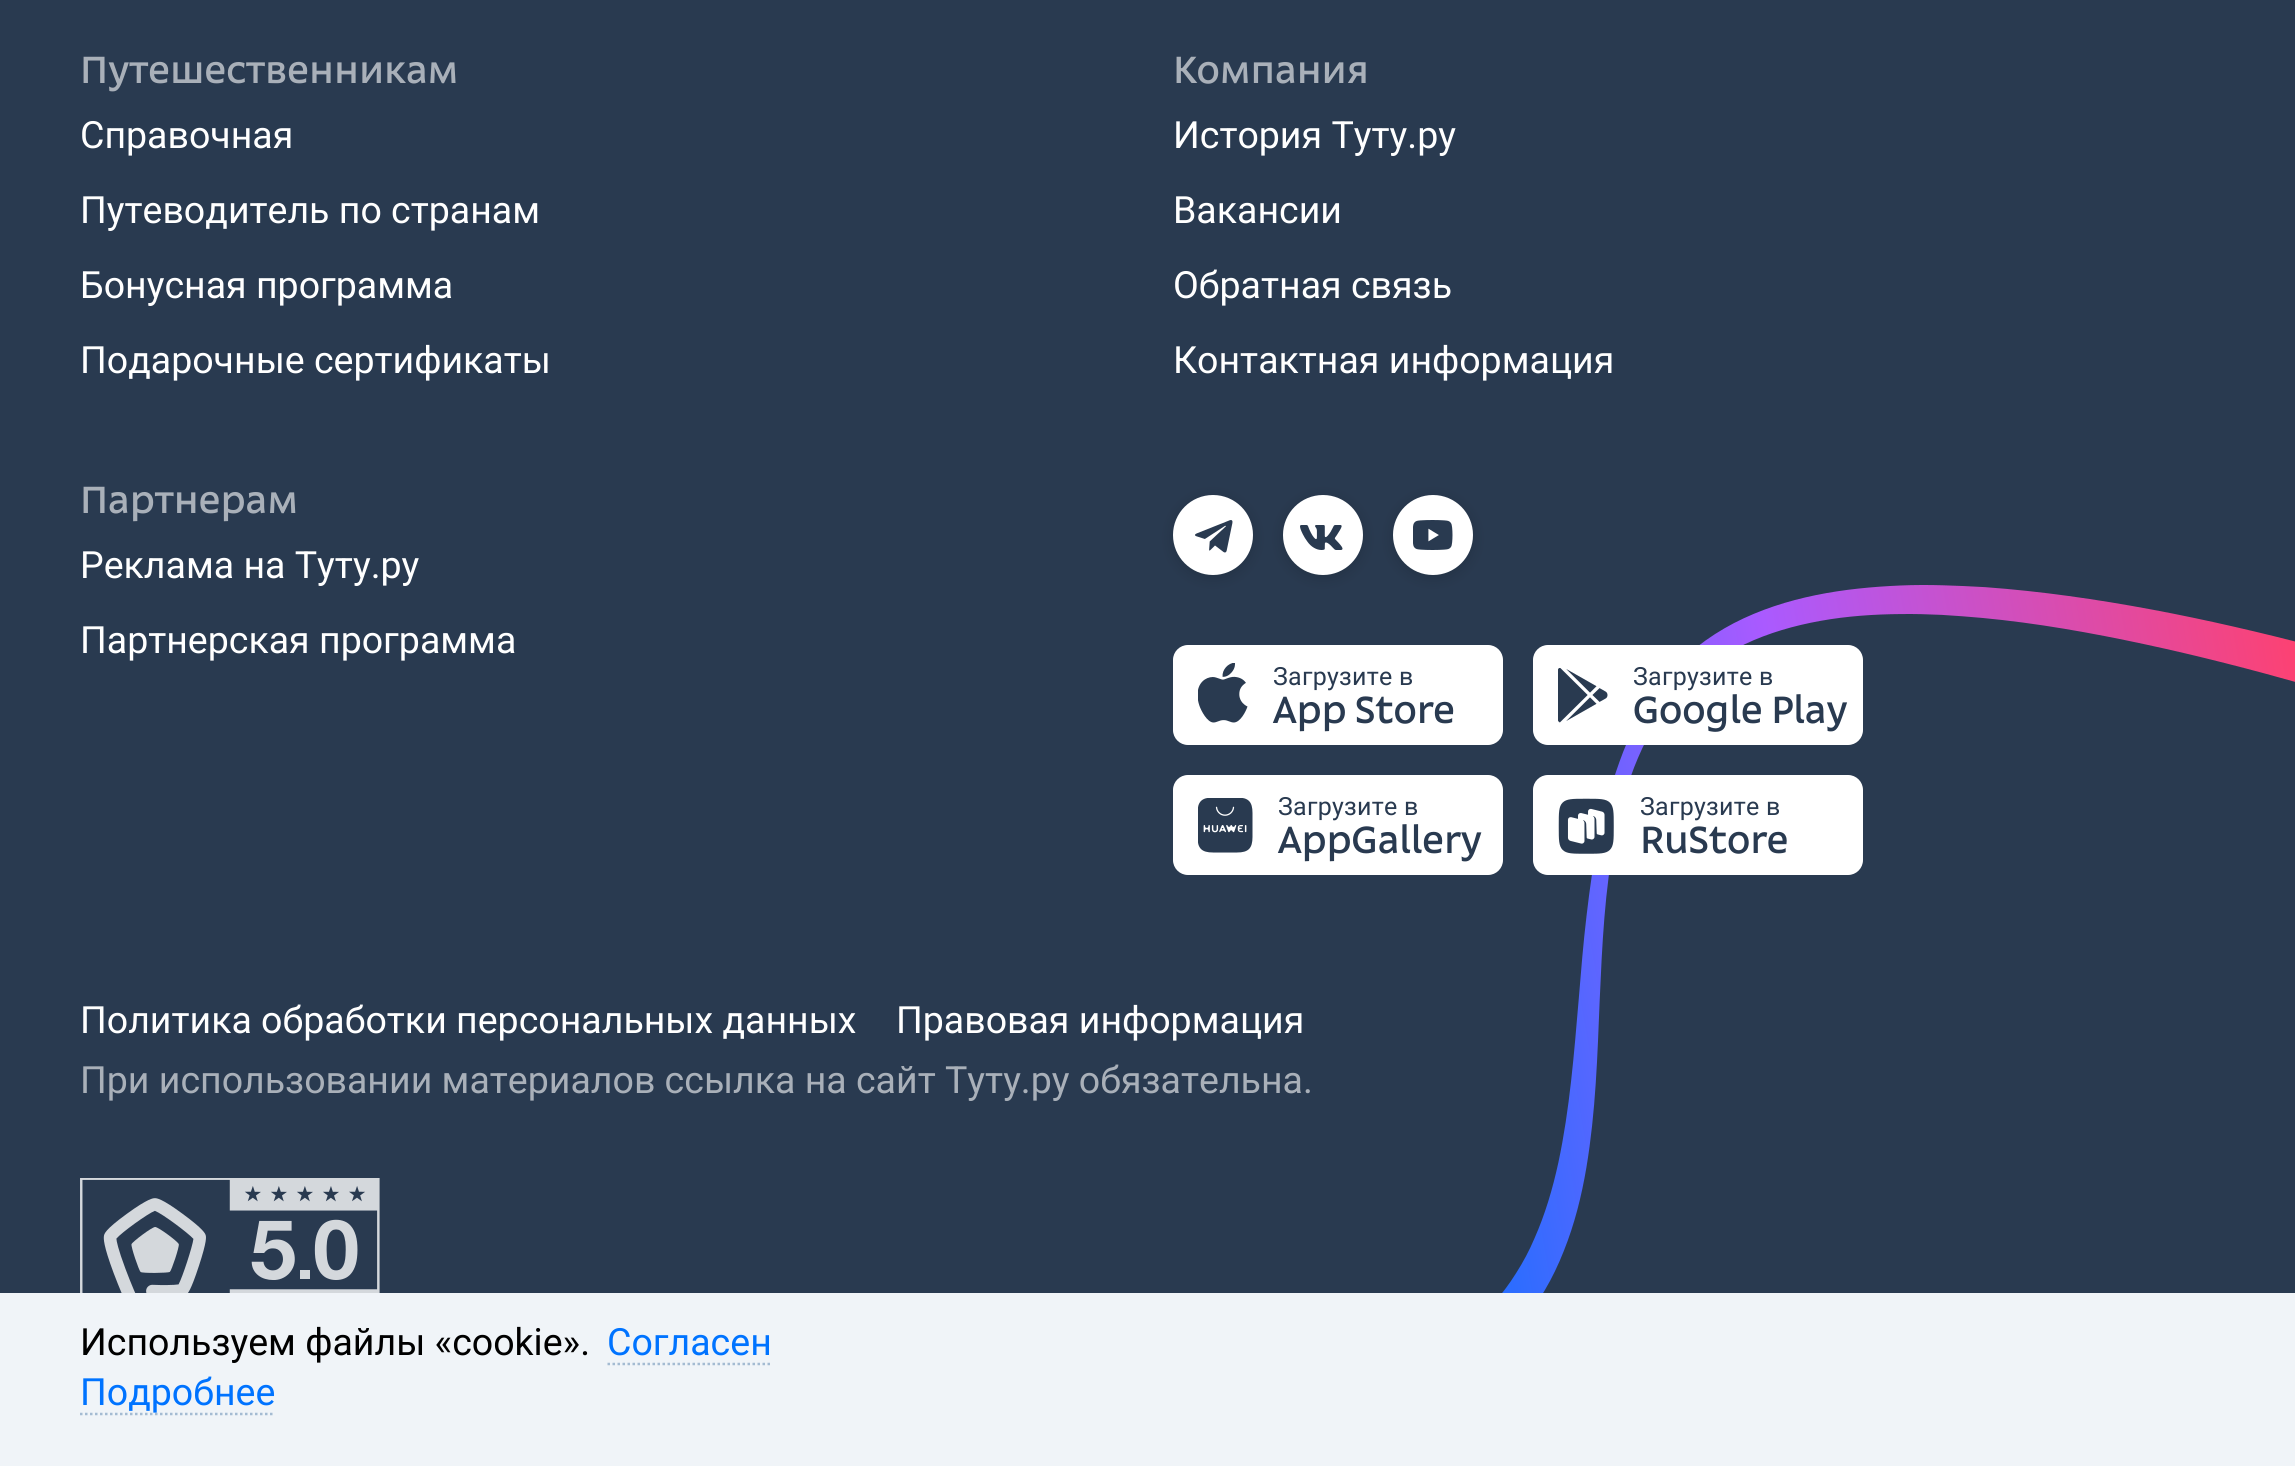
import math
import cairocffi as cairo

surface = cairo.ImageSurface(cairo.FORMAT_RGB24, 2295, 1466)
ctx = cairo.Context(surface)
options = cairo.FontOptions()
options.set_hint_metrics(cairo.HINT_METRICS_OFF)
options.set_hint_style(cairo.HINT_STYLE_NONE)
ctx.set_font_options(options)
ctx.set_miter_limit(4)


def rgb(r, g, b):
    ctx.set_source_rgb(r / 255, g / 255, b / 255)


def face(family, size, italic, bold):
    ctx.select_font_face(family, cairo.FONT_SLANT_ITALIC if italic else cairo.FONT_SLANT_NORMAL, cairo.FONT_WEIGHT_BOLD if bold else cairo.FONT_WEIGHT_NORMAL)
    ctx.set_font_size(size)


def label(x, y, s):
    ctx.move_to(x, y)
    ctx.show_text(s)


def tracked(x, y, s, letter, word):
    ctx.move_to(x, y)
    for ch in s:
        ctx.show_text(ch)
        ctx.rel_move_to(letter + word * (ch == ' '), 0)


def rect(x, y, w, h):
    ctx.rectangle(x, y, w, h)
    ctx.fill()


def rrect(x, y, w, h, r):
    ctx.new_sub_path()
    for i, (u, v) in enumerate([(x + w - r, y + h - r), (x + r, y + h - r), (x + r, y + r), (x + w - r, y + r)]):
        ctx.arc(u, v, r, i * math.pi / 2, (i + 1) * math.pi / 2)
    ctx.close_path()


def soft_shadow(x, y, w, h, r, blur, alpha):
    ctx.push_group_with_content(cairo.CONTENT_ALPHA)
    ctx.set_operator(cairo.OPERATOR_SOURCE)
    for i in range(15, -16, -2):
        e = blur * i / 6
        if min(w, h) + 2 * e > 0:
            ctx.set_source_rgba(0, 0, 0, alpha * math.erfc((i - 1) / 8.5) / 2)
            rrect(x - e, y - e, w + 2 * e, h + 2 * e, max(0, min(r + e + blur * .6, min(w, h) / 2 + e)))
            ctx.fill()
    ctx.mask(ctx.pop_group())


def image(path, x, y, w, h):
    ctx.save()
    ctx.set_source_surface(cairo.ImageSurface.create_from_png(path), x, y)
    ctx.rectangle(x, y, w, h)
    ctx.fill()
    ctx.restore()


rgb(41, 58, 80)
ctx.paint()
face('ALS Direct', 37.5, 0, 0)
rgb(169, 176, 185)
label(80, 83, 'Путешественникам')
face('Roboto', 37.5, 0, 0)
rgb(255, 255, 255)
label(80, 148, 'Справочная')
label(80, 223, 'Путеводитель по странам')
label(80, 298, 'Бонусная программа')
label(80, 373, 'Подарочные сертификаты')
face('ALS Direct', 37.5, 0, 0)
rgb(169, 176, 185)
label(1173, 83, 'Компания')
face('Roboto', 37.5, 0, 0)
rgb(255, 255, 255)
label(1173, 148, 'История Туту.ру')
label(1173, 223, 'Вакансии')
label(1173, 298, 'Обратная связь')
label(1173, 373, 'Контактная информация')
face('ALS Direct', 37.5, 0, 0)
rgb(169, 176, 185)
label(80, 513, 'Партнерам')
face('Roboto', 37.5, 0, 0)
rgb(255, 255, 255)
label(80, 578, 'Реклама на Туту.ру')
label(80, 653, 'Партнерская программа')
rgb(0, 0, 0)
soft_shadow(1173, 498, 80, 80, 40, 7.5, 0.15)
rgb(255, 255, 255)
ctx.arc(1213, 535, 40, 0, 2 * math.pi)
ctx.fill()
image('image0.png', 1195, 520, 38, 33)
rgb(0, 0, 0)
soft_shadow(1283, 498, 80, 80, 40, 7.5, 0.15)
rgb(255, 255, 255)
ctx.arc(1323, 535, 40, 0, 2 * math.pi)
ctx.fill()
image('image1.png', 1300, 525, 43, 25)
rgb(0, 0, 0)
soft_shadow(1393, 498, 80, 80, 40, 7.5, 0.15)
rgb(255, 255, 255)
ctx.arc(1433, 535, 40, 0, 2 * math.pi)
ctx.fill()
image('image2.png', 1413, 520, 40, 30)
image('image8.png', 1502, 585, 793, 708)
rrect(1173, 645, 330, 100, 15)
ctx.fill()
image('image3.png', 1198, 663, 50, 60)
face('Roboto', 25, 0, 0)
rgb(41, 58, 80)
tracked(1273, 685, 'Загрузите в', 0.25, 0)
face('ALS Direct', 37.5, 0, 0)
label(1273, 723, 'App Store')
rgb(255, 255, 255)
rrect(1533, 645, 330, 100, 15)
ctx.fill()
image('image4.png', 1558, 668, 50, 55)
face('Roboto', 25, 0, 0)
rgb(41, 58, 80)
tracked(1633, 685, 'Загрузите в', 0.25, 0)
face('ALS Direct', 37.5, 0, 0)
label(1633, 723, 'Google Play')
rgb(255, 255, 255)
rrect(1173, 775, 330, 100, 15)
ctx.fill()
image('image5.png', 1198, 798, 55, 55)
face('Roboto', 25, 0, 0)
rgb(41, 58, 80)
tracked(1278, 815, 'Загрузите в', 0.25, 0)
face('ALS Direct', 37.5, 0, 0)
label(1278, 853, 'AppGallery')
rgb(255, 255, 255)
rrect(1533, 775, 330, 100, 15)
ctx.fill()
image('image6.png', 1558, 798, 56, 56)
face('Roboto', 25, 0, 0)
rgb(41, 58, 80)
tracked(1640, 815, 'Загрузите в', 0.25, 0)
face('ALS Direct', 37.5, 0, 0)
label(1640, 853, 'RuStore')
face('Roboto', 37.5, 0, 0)
rgb(255, 255, 255)
label(80, 1033, 'Политика обработки персональных данных')
label(896, 1033, 'Правовая информация')
rgb(169, 176, 185)
label(80, 1093, 'При использовании материалов ссылка на сайт Туту.ру обязательна.')
image('image7.png', 80, 1178, 300, 115)
rgb(240, 244, 248)
rect(0, 1293, 2295, 173)
rgb(0, 0, 0)
label(80, 1355, 'Используем файлы «cookie».')
ctx.new_path()
ctx.move_to(607.5, 1364)
ctx.line_to(772.5, 1364)
rgb(164, 187, 210)
ctx.set_line_width(2.5)
ctx.set_dash([2.5, 2.5])
ctx.stroke()
rgb(0, 115, 255)
label(607, 1355, 'Согласен')
ctx.new_path()
ctx.move_to(80, 1414)
ctx.line_to(275, 1414)
rgb(164, 187, 210)
ctx.stroke()
rgb(0, 115, 255)
label(80, 1405, 'Подробнее')
surface.write_to_png('render.png')
